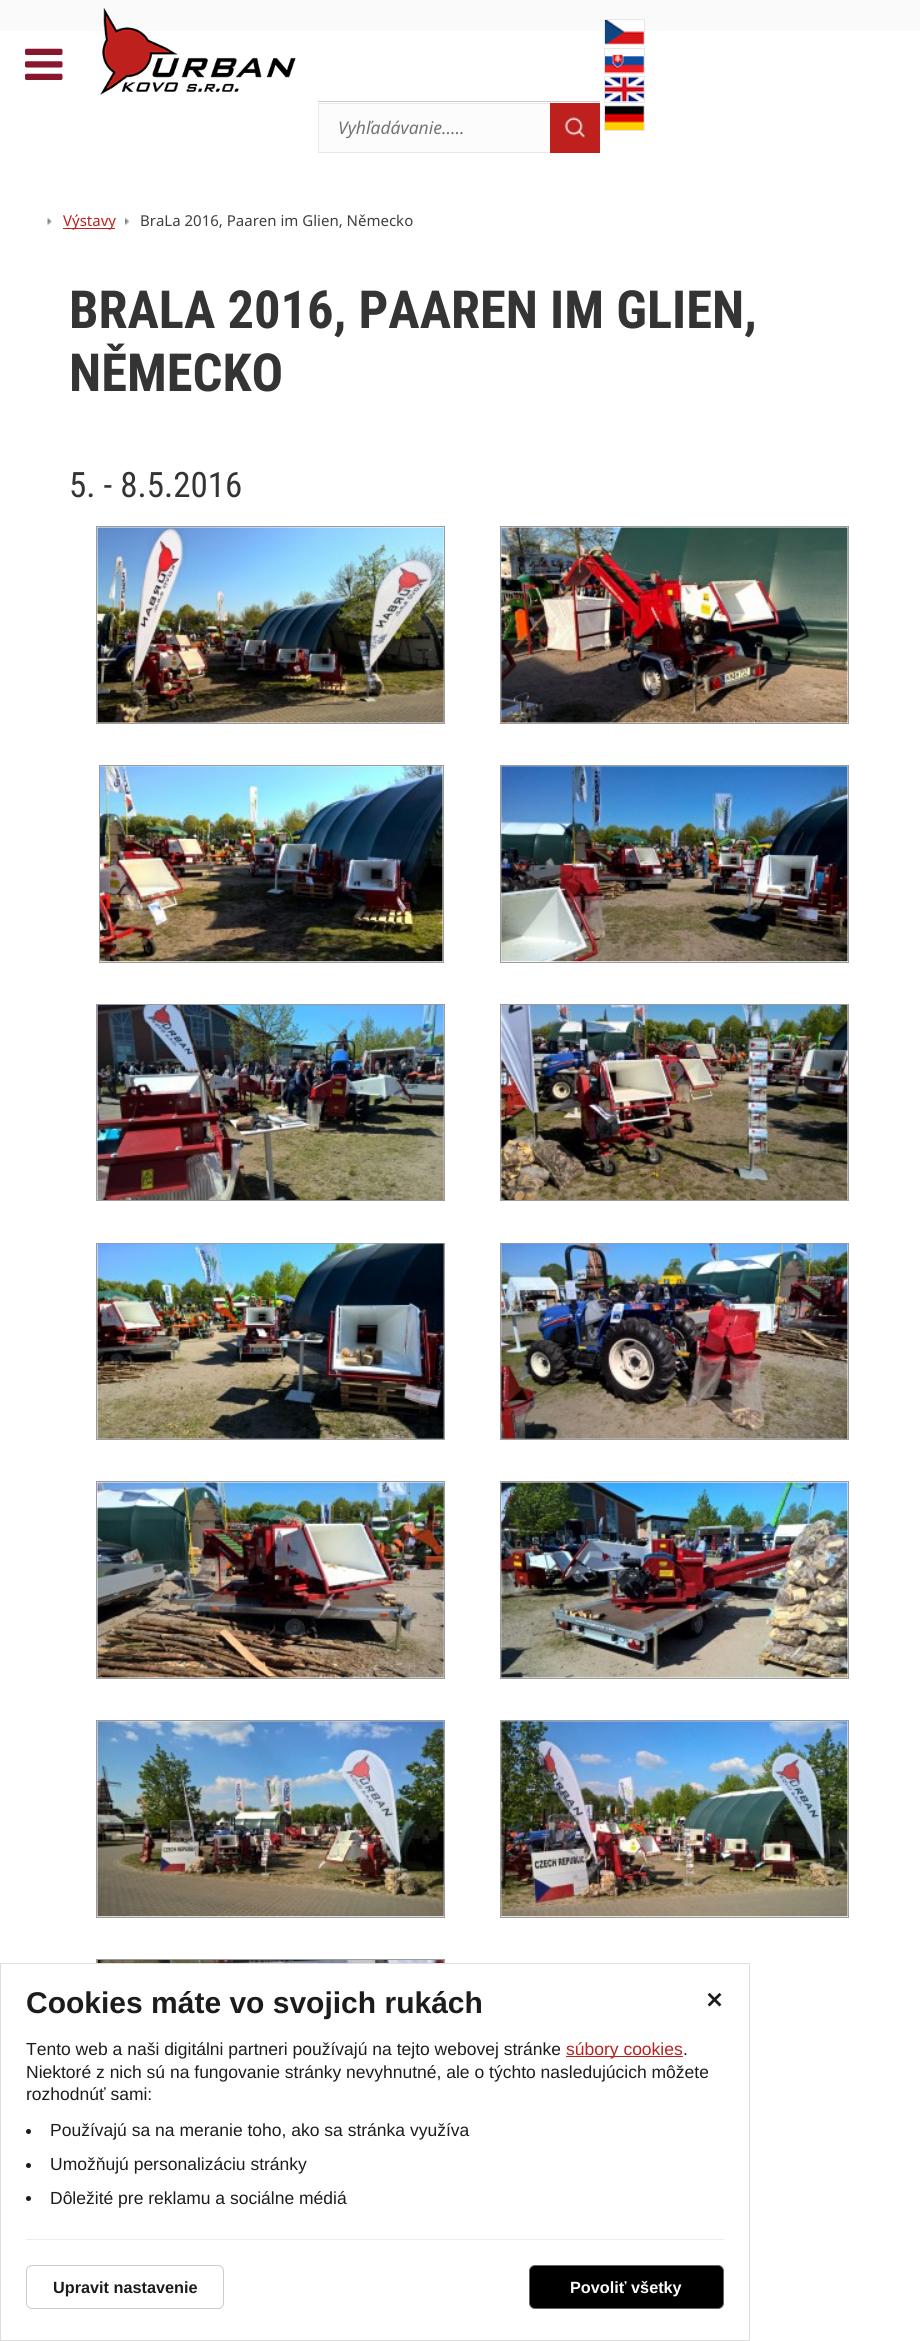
import math
import cairocffi as cairo

surface = cairo.ImageSurface(cairo.FORMAT_RGB24, 920, 2341)
ctx = cairo.Context(surface)
options = cairo.FontOptions()
options.set_hint_metrics(cairo.HINT_METRICS_OFF)
options.set_hint_style(cairo.HINT_STYLE_NONE)
ctx.set_font_options(options)
ctx.set_miter_limit(4)


def rgb(r, g, b):
    ctx.set_source_rgb(r / 255, g / 255, b / 255)


def face(family, size, italic, bold):
    ctx.select_font_face(family, cairo.FONT_SLANT_ITALIC if italic else cairo.FONT_SLANT_NORMAL, cairo.FONT_WEIGHT_BOLD if bold else cairo.FONT_WEIGHT_NORMAL)
    ctx.set_font_size(size)


def label(x, y, s):
    ctx.move_to(x, y)
    ctx.show_text(s)


def rect(x, y, w, h):
    ctx.rectangle(x, y, w, h)
    ctx.fill()


def rrect(x, y, w, h, r):
    ctx.new_sub_path()
    for i, (u, v) in enumerate([(x + w - r, y + h - r), (x + r, y + h - r), (x + r, y + r), (x + w - r, y + r)]):
        ctx.arc(u, v, r, i * math.pi / 2, (i + 1) * math.pi / 2)
    ctx.close_path()


def image(path, x, y, w, h):
    ctx.save()
    ctx.set_source_surface(cairo.ImageSurface.create_from_png(path), x, y)
    ctx.rectangle(x, y, w, h)
    ctx.fill()
    ctx.restore()


rgb(255, 255, 255)
ctx.paint()
rgb(250, 250, 250)
rect(0, 0, 920, 31)
image('image0.png', 25, 48, 38, 32)
image('image1.png', 100, 8, 196, 87)
image('image2.png', 605, 20, 39, 24)
ctx.rectangle(604.5, 19.5, 40, 25)
rgb(230, 230, 230)
ctx.set_line_width(1)
ctx.stroke()
image('image3.png', 605, 53, 39, 20)
ctx.rectangle(604.5, 48.5, 40, 25)
ctx.stroke()
image('image4.png', 605, 77, 39, 25)
ctx.rectangle(604.5, 76.5, 40, 26)
ctx.stroke()
image('image5.png', 605, 106, 39, 24)
ctx.rectangle(604.5, 105.5, 40, 25)
ctx.stroke()
rgb(204, 204, 204)
rect(318, 101, 282, 1)
rgb(252, 252, 252)
rect(319, 104, 231, 48)
ctx.rectangle(318.5, 103.5, 281, 49)
rgb(235, 231, 230)
ctx.stroke()
face('Noto Sans', 17.5, 1, 0)
rgb(115, 115, 115)
label(338, 134, 'Vyhľadávanie.....')
rgb(189, 32, 29)
rect(550, 103, 50, 50)
image('image6.png', 564, 117, 22, 21)
image('image7.png', 47, 217, 5, 8)
rect(63, 228, 52, 1)
face('Noto Sans', 15, 0, 0)
label(63, 226, 'Výstavy')
image('image8.png', 125, 217, 4, 8)
rgb(62, 62, 62)
label(140, 226, 'BraLa 2016, Paaren im Glien, Německo')
face('Roboto Condensed', 52.5, 0, 1)
rgb(52, 52, 52)
label(69, 328, 'BRALA 2016, PAAREN IM GLIEN,')
label(69, 391, 'NĚMECKO')
face('Roboto Condensed', 35, 0, 0)
label(69, 497, '5. - 8.5.2016')
ctx.rectangle(96.5, 526.5, 348, 197)
rgb(155, 155, 155)
ctx.stroke()
image('image9.png', 97, 527, 347, 196)
ctx.rectangle(500.5, 526.5, 348, 197)
ctx.stroke()
image('image10.png', 501, 527, 347, 196)
ctx.rectangle(99.5, 765.5, 344, 197)
ctx.stroke()
image('image11.png', 100, 766, 343, 196)
ctx.rectangle(500.5, 765.5, 348, 197)
ctx.stroke()
image('image12.png', 501, 766, 347, 196)
ctx.rectangle(96.5, 1004.5, 348, 196)
ctx.stroke()
image('image13.png', 97, 1005, 347, 195)
ctx.rectangle(500.5, 1004.5, 348, 196)
ctx.stroke()
image('image14.png', 501, 1005, 347, 195)
ctx.rectangle(96.5, 1243.5, 348, 196)
ctx.stroke()
image('image15.png', 97, 1243, 347, 196)
ctx.rectangle(500.5, 1243.5, 348, 196)
ctx.stroke()
image('image16.png', 501, 1243, 347, 196)
ctx.rectangle(96.5, 1481.5, 348, 197)
ctx.stroke()
image('image17.png', 97, 1482, 347, 196)
ctx.rectangle(500.5, 1481.5, 348, 197)
ctx.stroke()
image('image18.png', 501, 1482, 347, 196)
ctx.rectangle(96.5, 1720.5, 348, 197)
ctx.stroke()
image('image19.png', 97, 1721, 347, 196)
ctx.rectangle(500.5, 1720.5, 348, 197)
ctx.stroke()
image('image20.png', 501, 1721, 347, 196)
ctx.rectangle(96.5, 1959.5, 348, 196)
ctx.stroke()
image('image21.png', 97, 1960, 347, 3)
rgb(255, 255, 255)
rect(96, 1964, 349, 192)
ctx.rectangle(0.5, 1963.5, 749, 377)
rgb(221, 221, 221)
ctx.stroke()
face('Liberation Sans', 30, 0, 1)
rgb(28, 28, 28)
label(26, 2013, 'Cookies máte vo svojich rukách')
face('Liberation Sans', 17.5, 0, 0)
label(26, 2055, 'Tento web a naši digitálni partneri používajú na tejto webovej stránke')
rgb(189, 32, 29)
rect(566, 2056, 117, 1)
label(566, 2055, 'súbory cookies')
rgb(28, 28, 28)
label(683, 2055, '.')
label(26, 2078, 'Niektoré z nich sú na fungovanie stránky nevyhnutné, ale o týchto nasledujúcich môžete')
label(26, 2100, 'rozhodnúť sami:')
rgb(28, 27, 27)
ctx.new_path()
ctx.arc(28.5, 2131.5, 2.5, 0, 2 * math.pi)
ctx.fill()
rgb(28, 28, 28)
label(50, 2136, 'Používajú sa na meranie toho, ako sa stránka využíva')
rgb(28, 27, 27)
ctx.new_path()
ctx.arc(28.5, 2165.5, 2.5, 0, 2 * math.pi)
ctx.fill()
rgb(28, 28, 28)
label(50, 2170, 'Umožňujú personalizáciu stránky')
rgb(28, 27, 27)
ctx.new_path()
ctx.arc(28.5, 2198.5, 2.5, 0, 2 * math.pi)
ctx.fill()
rgb(28, 28, 28)
label(50, 2204, 'Dôležité pre reklamu a sociálne médiá')
face('DejaVu Sans', 22, 0, 1)
label(705, 2008, '✕')
rgb(237, 237, 237)
rect(26, 2239, 698, 1)
rrect(26.5, 2265.5, 197, 43, 5.5)
rgb(204, 204, 204)
ctx.stroke()
face('Liberation Sans', 16.25, 0, 1)
rgb(28, 28, 28)
label(53, 2293, 'Upravit nastavenie')
rgb(0, 0, 0)
rrect(529.5, 2265.5, 194, 43, 5.5)
ctx.fill_preserve()
rgb(101, 101, 101)
ctx.stroke()
rgb(255, 255, 255)
label(570, 2293, 'Povoliť všetky')
surface.write_to_png('render.png')
